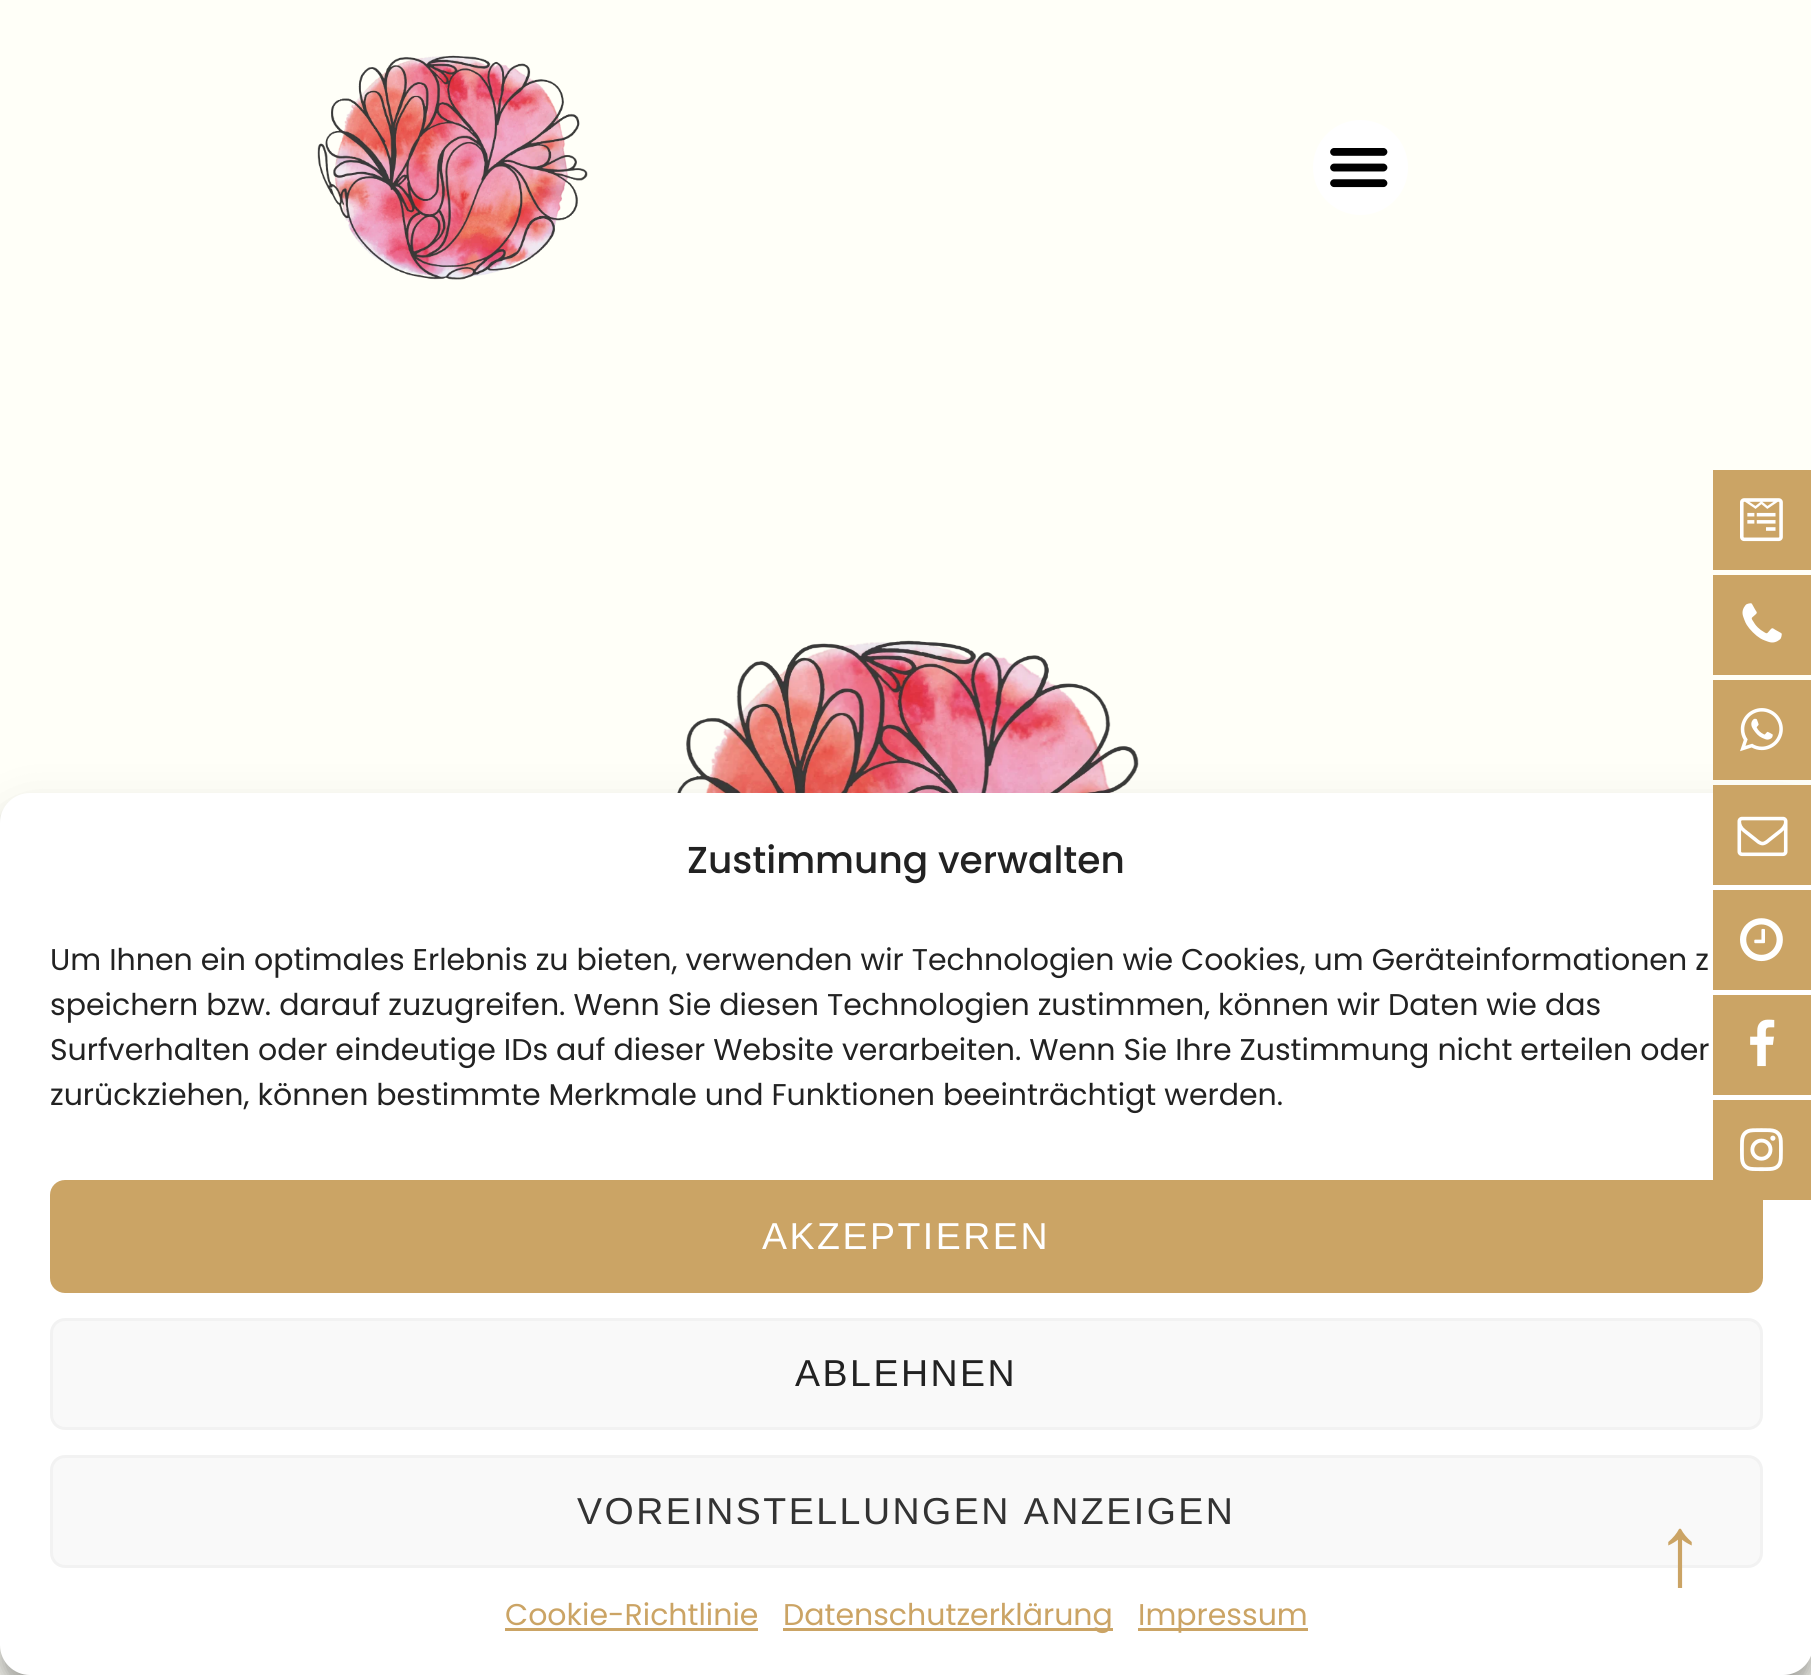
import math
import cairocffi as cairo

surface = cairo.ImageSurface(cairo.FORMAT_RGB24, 1811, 1675)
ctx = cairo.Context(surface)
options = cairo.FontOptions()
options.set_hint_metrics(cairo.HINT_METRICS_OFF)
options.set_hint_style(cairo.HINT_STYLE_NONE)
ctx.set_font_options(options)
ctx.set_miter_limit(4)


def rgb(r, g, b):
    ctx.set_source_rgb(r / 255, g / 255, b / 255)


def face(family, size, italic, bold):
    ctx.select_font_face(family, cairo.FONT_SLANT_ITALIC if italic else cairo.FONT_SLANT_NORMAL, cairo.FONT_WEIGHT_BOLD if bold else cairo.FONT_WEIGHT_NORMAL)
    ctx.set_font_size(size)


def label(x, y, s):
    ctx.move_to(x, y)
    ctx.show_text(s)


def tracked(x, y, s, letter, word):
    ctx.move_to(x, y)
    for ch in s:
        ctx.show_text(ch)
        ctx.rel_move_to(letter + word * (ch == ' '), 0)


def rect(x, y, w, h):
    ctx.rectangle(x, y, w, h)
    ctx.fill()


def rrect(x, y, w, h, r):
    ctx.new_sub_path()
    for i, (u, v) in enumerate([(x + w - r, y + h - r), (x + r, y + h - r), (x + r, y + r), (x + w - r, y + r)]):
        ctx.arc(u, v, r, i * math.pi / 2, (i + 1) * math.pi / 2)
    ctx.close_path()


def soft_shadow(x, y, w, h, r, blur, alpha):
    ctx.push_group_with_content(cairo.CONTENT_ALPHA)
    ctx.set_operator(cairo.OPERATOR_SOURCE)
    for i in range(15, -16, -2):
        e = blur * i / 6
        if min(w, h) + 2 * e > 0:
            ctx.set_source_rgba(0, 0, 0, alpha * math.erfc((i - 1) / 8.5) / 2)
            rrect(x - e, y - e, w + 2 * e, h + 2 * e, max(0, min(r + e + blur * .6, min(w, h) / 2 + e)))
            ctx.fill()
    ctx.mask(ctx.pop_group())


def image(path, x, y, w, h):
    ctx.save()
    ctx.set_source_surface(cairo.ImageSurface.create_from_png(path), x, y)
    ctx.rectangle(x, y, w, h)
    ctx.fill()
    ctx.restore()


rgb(255, 255, 248)
ctx.paint()
image('image0.png', 317, 55, 271, 225)
rgb(255, 255, 255)
ctx.arc(1360.5, 167.5, 47.5, 0, 2 * math.pi)
ctx.fill()
image('image1.png', 1330, 148, 58, 40)
image('image9.png', 677, 640, 462, 153)
rgb(0, 0, 0)
soft_shadow(0, 808, 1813, 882, 30, 7.5, 0.23)
soft_shadow(0, 818, 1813, 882, 30, 25, 0.19)
rgb(255, 255, 255)
rrect(0, 793, 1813, 882, 30)
ctx.fill()
face('Poppins Medium', 37.5, 0, 0)
rgb(34, 34, 34)
label(687, 873, 'Zustimmung verwalten')
face('Poppins', 30, 0, 0)
label(50, 970, 'Um Ihnen ein optimales Erlebnis zu bieten, verwenden wir Technologien wie Cookies, um Geräteinformationen z')
label(50, 1015, 'speichern bzw. darauf zuzugreifen. Wenn Sie diesen Technologien zustimmen, können wir Daten wie das')
label(50, 1060, 'Surfverhalten oder eindeutige IDs auf dieser Website verarbeiten. Wenn Sie Ihre Zustimmung nicht erteilen oder')
label(50, 1105, 'zurückziehen, können bestimmte Merkmale und Funktionen beeinträchtigt werden.')
rgb(203, 164, 101)
rrect(51.5, 1181.5, 1710, 110, 13.5)
ctx.fill_preserve()
ctx.set_line_width(3)
ctx.stroke()
face('Liberation Sans', 37.5, 0, 0)
rgb(255, 255, 255)
tracked(762, 1249, 'AKZEPTIEREN', 2.5, 0)
rgb(249, 249, 249)
rrect(51.5, 1319.5, 1710, 109, 13.5)
ctx.fill_preserve()
rgb(242, 242, 242)
ctx.stroke()
rgb(34, 34, 34)
tracked(795, 1386, 'ABLEHNEN', 2.5, 0)
rgb(249, 249, 249)
rrect(51.5, 1456.5, 1710, 110, 13.5)
ctx.fill_preserve()
rgb(242, 242, 242)
ctx.stroke()
rgb(51, 51, 51)
tracked(577, 1524, 'VOREINSTELLUNGEN ANZEIGEN', 2.5, 0)
face('Poppins', 30, 0, 0)
rgb(203, 164, 101)
label(505, 1625, 'Cookie-Richtlinie')
rect(505, 1628, 253, 3)
rect(783, 1628, 330, 3)
label(783, 1625, 'Datenschutzerklärung')
rect(1138, 1628, 170, 3)
label(1138, 1625, 'Impressum')
rect(1713, 470, 98, 100)
image('image2.png', 1740, 498, 43, 44)
rect(1713, 575, 98, 100)
image('image3.png', 1742, 603, 40, 40)
rect(1713, 680, 98, 100)
image('image4.png', 1740, 708, 43, 44)
rect(1713, 785, 98, 100)
image('image5.png', 1737, 816, 51, 41)
rect(1713, 890, 98, 100)
image('image6.png', 1740, 918, 43, 44)
rect(1713, 995, 98, 100)
image('image7.png', 1750, 1019, 25, 48)
rect(1713, 1100, 98, 100)
image('image8.png', 1740, 1128, 43, 44)
face('Liberation Sans', 100, 0, 0)
label(1655, 1585, '↑')
surface.write_to_png('render.png')
